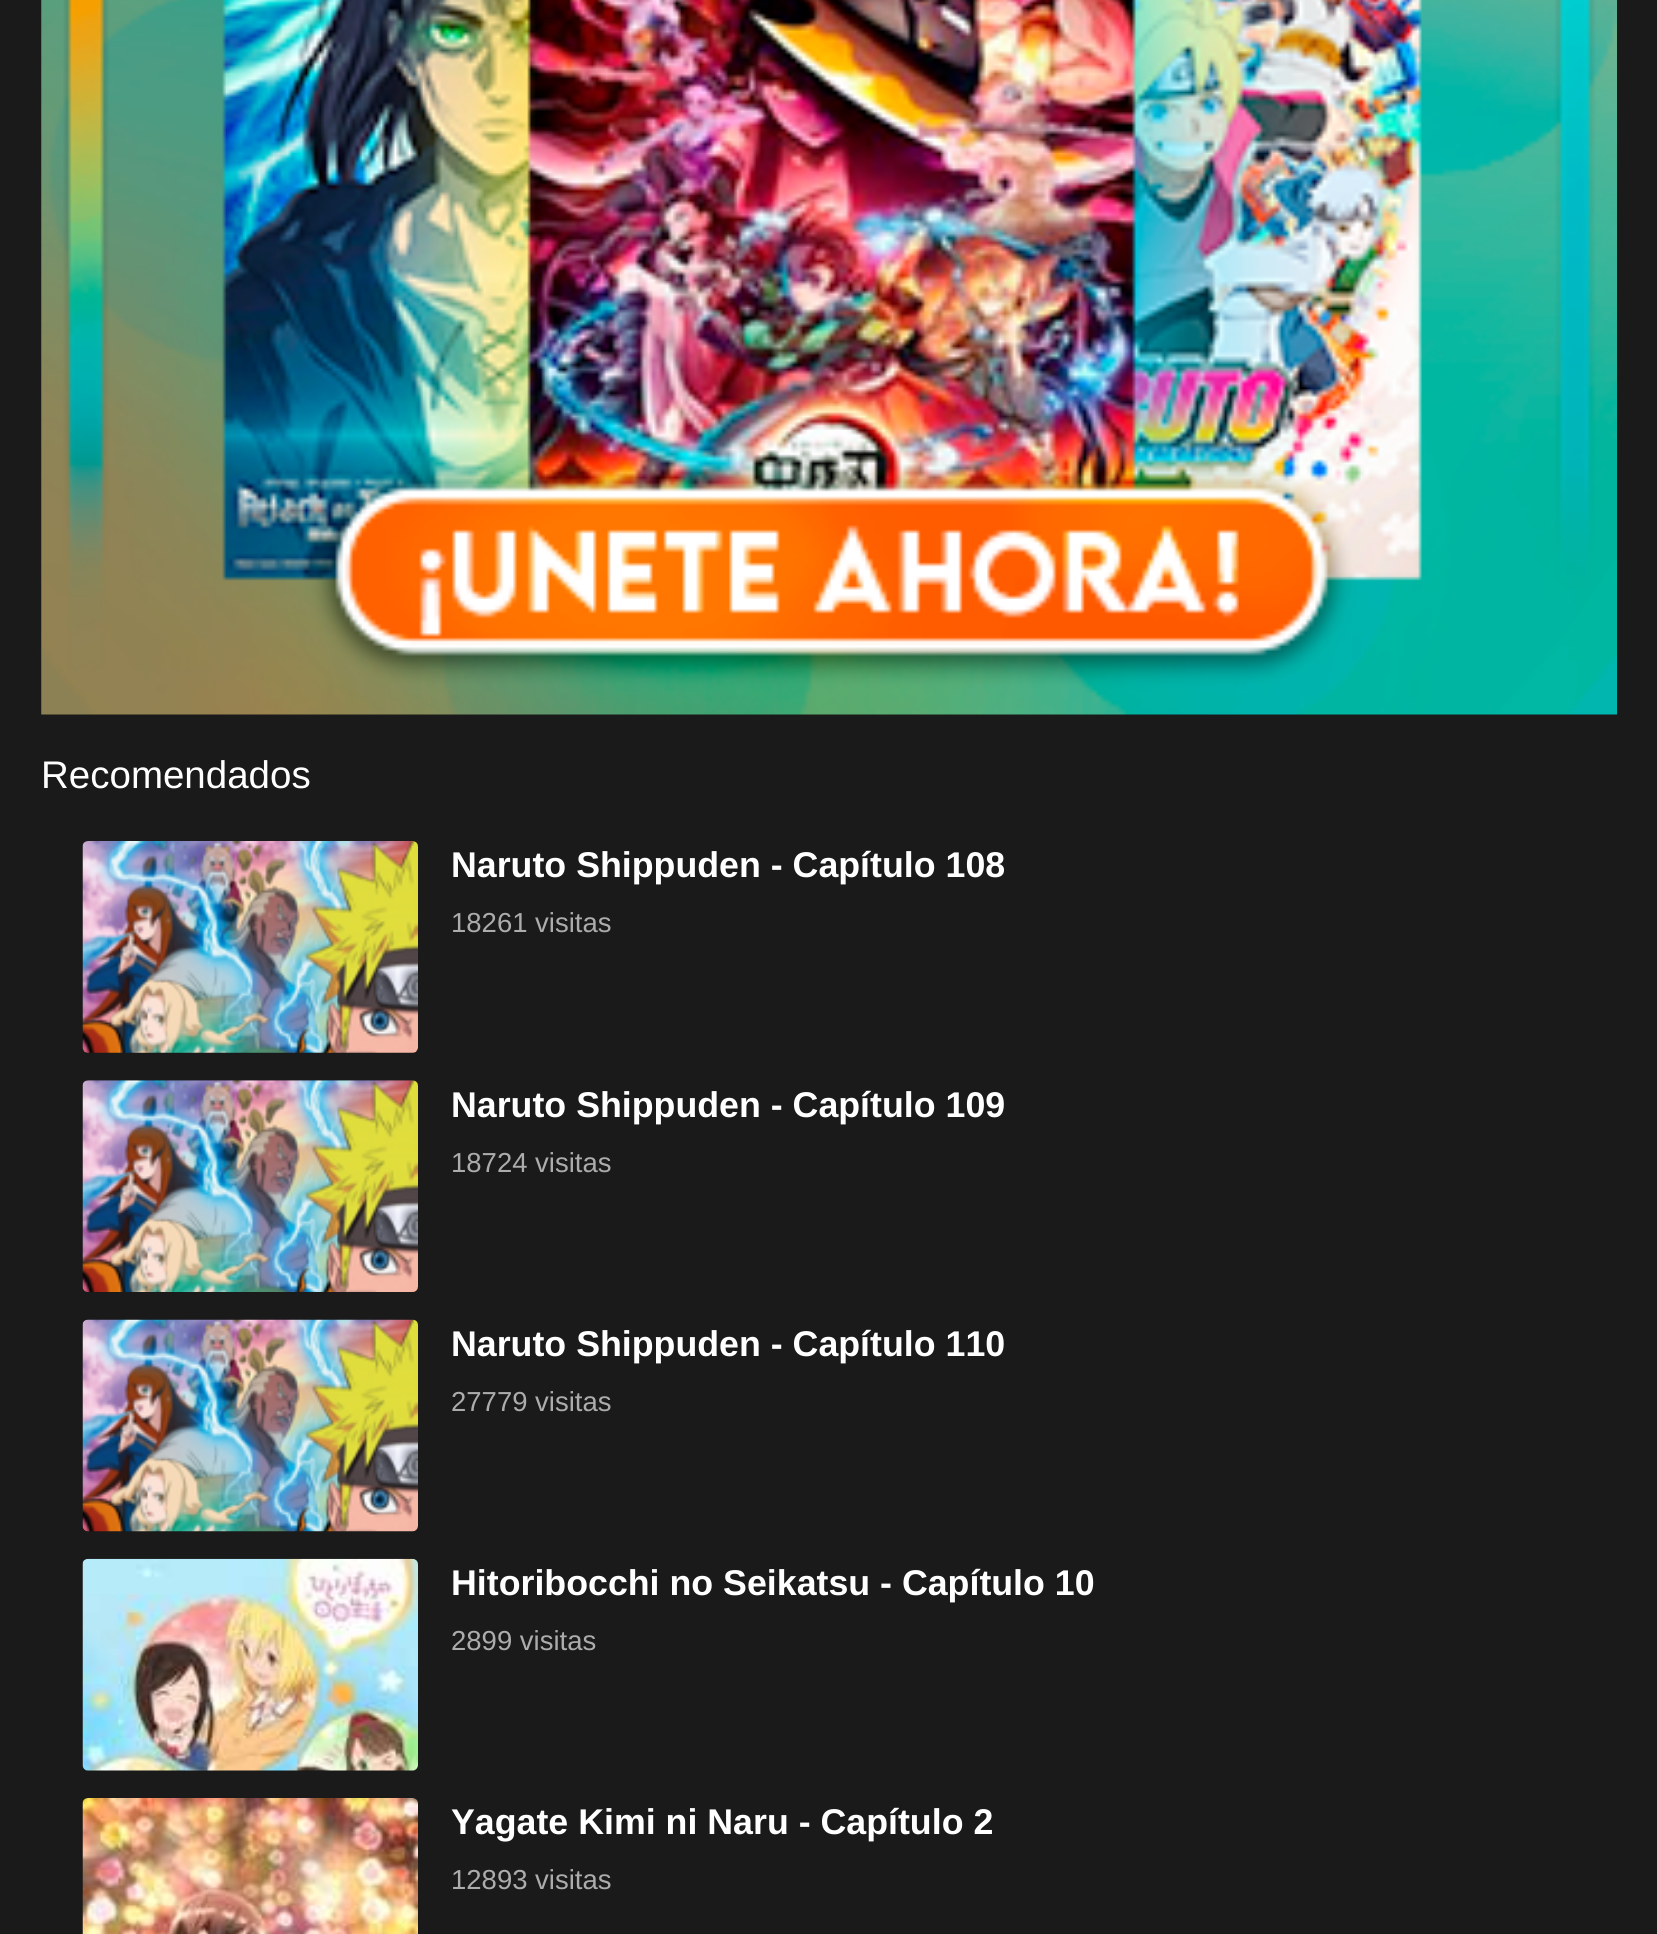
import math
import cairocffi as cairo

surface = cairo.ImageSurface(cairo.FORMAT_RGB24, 1657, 1934)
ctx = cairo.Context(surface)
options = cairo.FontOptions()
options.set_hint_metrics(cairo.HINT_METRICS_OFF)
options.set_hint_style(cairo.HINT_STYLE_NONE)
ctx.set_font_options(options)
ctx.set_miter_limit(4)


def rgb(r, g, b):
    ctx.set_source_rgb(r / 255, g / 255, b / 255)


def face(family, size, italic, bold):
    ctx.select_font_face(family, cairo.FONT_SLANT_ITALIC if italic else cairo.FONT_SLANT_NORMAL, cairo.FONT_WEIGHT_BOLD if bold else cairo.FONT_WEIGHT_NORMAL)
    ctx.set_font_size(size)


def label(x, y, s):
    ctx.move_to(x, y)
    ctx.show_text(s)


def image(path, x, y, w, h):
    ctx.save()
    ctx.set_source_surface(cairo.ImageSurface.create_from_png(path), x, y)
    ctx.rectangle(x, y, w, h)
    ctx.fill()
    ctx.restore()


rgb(26, 26, 26)
ctx.paint()
image('image0.png', 41, 0, 1576, 715)
face('Liberation Sans', 38.5, 0, 0)
rgb(255, 255, 255)
label(41, 788, 'Recomendados')
image('image1.png', 82, 841, 336, 212)
face('Liberation Sans', 35.75, 0, 1)
label(451, 877, 'Naruto Shippuden - Capítulo 108')
face('Liberation Sans', 27.5, 0, 0)
rgb(172, 172, 172)
label(451, 932, '18261 visitas')
image('image2.png', 82, 1080, 336, 212)
face('Liberation Sans', 35.75, 0, 1)
rgb(255, 255, 255)
label(451, 1117, 'Naruto Shippuden - Capítulo 109')
face('Liberation Sans', 27.5, 0, 0)
rgb(172, 172, 172)
label(451, 1172, '18724 visitas')
image('image3.png', 82, 1319, 336, 213)
face('Liberation Sans', 35.75, 0, 1)
rgb(255, 255, 255)
label(451, 1356, 'Naruto Shippuden - Capítulo 110')
face('Liberation Sans', 27.5, 0, 0)
rgb(172, 172, 172)
label(451, 1411, '27779 visitas')
image('image4.png', 82, 1558, 336, 213)
face('Liberation Sans', 35.75, 0, 1)
rgb(255, 255, 255)
label(451, 1595, 'Hitoribocchi no Seikatsu - Capítulo 10')
face('Liberation Sans', 27.5, 0, 0)
rgb(172, 172, 172)
label(451, 1650, '2899 visitas')
image('image5.png', 82, 1798, 336, 136)
face('Liberation Sans', 35.75, 0, 1)
rgb(255, 255, 255)
label(451, 1834, 'Yagate Kimi ni Naru - Capítulo 2')
face('Liberation Sans', 27.5, 0, 0)
rgb(172, 172, 172)
label(451, 1889, '12893 visitas')
surface.write_to_png('render.png')
